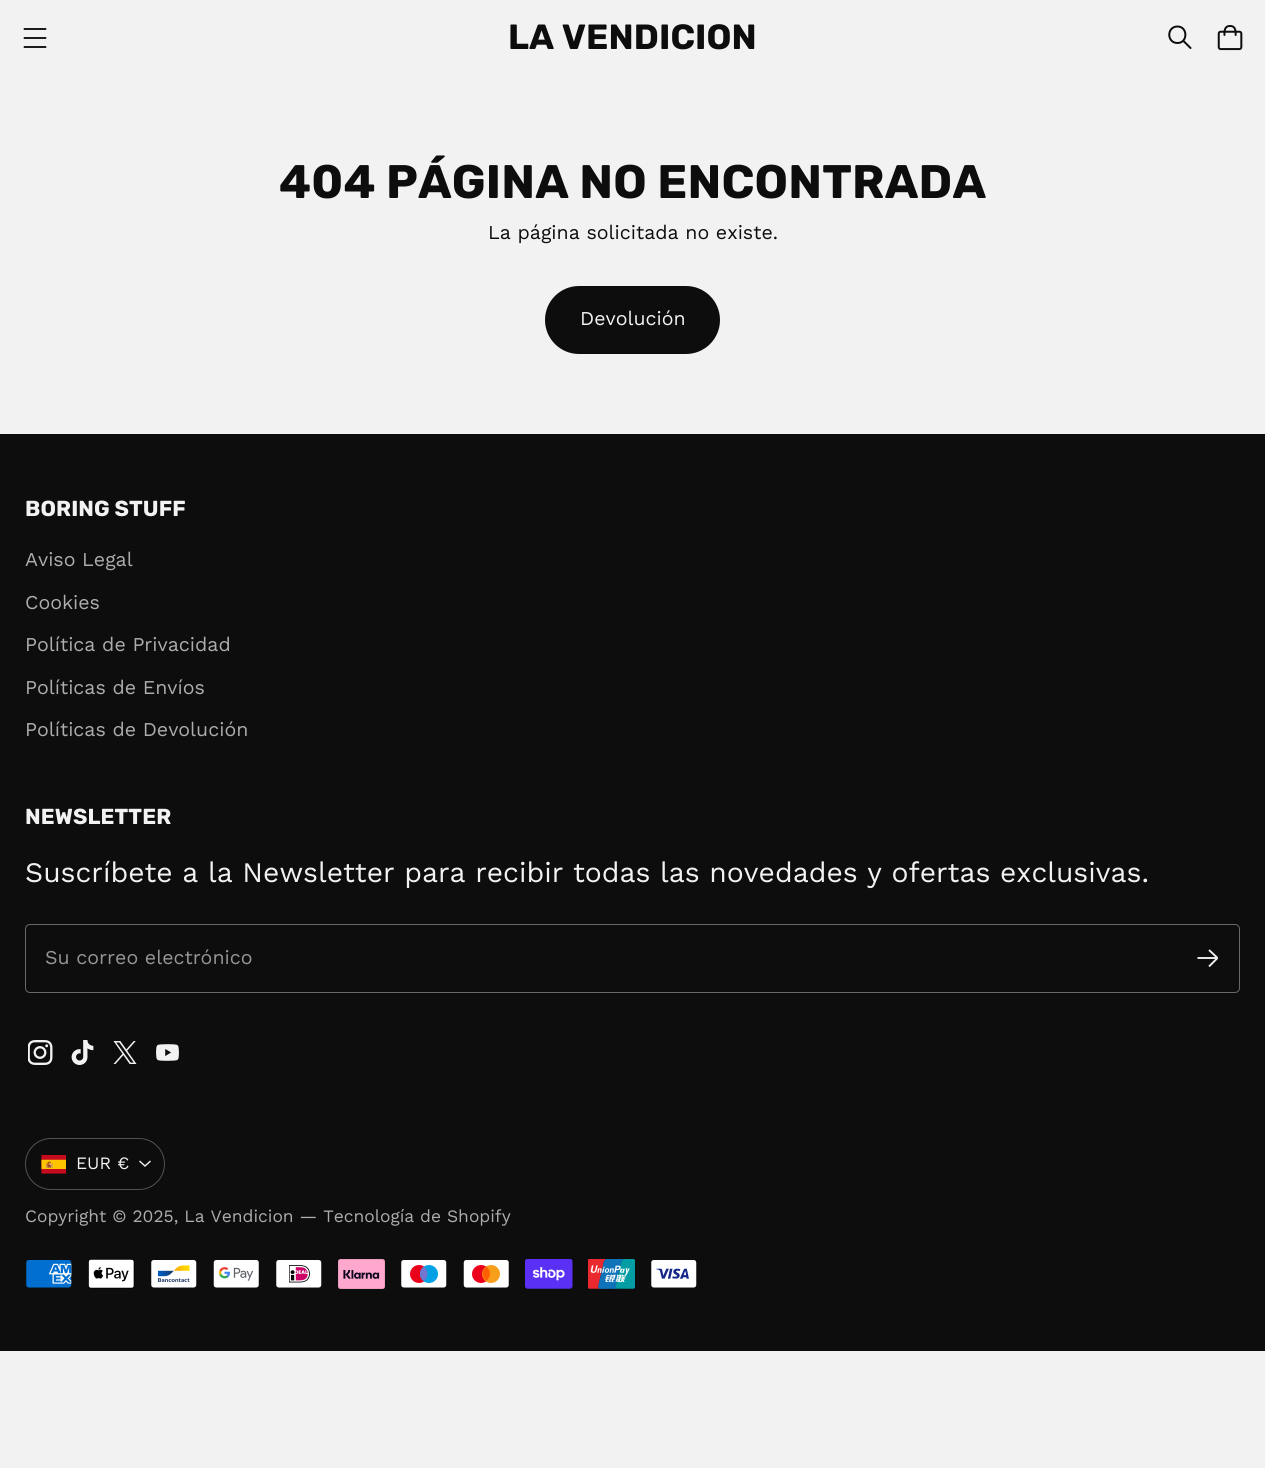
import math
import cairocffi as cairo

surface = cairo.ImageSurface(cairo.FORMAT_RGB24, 1265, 1468)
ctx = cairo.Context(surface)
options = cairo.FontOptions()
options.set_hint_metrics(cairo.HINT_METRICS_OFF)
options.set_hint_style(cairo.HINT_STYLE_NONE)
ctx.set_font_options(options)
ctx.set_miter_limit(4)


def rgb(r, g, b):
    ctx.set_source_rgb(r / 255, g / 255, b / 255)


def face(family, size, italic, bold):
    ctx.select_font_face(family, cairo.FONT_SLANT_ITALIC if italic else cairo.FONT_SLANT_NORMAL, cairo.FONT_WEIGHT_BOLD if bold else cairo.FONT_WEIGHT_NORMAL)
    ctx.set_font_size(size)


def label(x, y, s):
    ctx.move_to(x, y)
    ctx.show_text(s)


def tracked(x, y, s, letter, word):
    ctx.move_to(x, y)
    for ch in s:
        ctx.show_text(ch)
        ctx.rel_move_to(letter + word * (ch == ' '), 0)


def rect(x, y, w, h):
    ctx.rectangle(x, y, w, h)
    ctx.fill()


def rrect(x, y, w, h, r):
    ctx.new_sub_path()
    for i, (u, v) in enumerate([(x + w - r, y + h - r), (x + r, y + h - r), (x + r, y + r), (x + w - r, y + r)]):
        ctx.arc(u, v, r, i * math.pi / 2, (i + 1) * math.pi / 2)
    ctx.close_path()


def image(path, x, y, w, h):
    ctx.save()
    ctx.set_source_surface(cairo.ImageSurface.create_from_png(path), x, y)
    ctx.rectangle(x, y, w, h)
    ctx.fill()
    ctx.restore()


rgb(242, 242, 242)
ctx.paint()
ctx.new_path()
ctx.move_to(24.5, 38)
ctx.line_to(45.5, 38)
ctx.move_to(24.5, 47)
ctx.line_to(45.5, 47)
ctx.move_to(24.5, 29)
ctx.line_to(45.5, 29)
rgb(13, 13, 13)
ctx.set_line_width(1.9)
ctx.set_line_cap(cairo.LINE_CAP_ROUND)
ctx.set_line_join(cairo.LINE_JOIN_ROUND)
ctx.stroke()
face('Rubik', 35, 0, 1)
tracked(508, 49, 'LA VENDICION', 0.1, 0)
ctx.new_path()
ctx.move_to(1177.5, 43)
ctx.curve_to(1188, 43, 1188, 26.5, 1177.5, 26.5)
ctx.curve_to(1166.5, 26.5, 1166.5, 43, 1177.5, 43)
ctx.close_path()
ctx.move_to(1183.5, 41)
ctx.line_to(1190.5, 48)
ctx.set_line_width(2)
ctx.stroke()
image('image0.png', 1217, 25, 26, 26)
face('Rubik', 47, 0, 1)
tracked(279, 198, '404 PÁGINA NO ENCONTRADA', 0.2, 0)
face('Work Sans', 19.6, 0, 0)
label(488, 239, 'La página solicitada no existe.')
ctx.save()
rrect(545, 286, 175, 68, 34)
ctx.clip()
rrect(544, 285, 177, 70, 35)
ctx.fill()
ctx.restore()
rgb(242, 242, 242)
label(580, 325, 'Devolución')
rgb(13, 13, 13)
rect(0, 434, 1265, 917)
face('Rubik', 21.75, 0, 1)
rgb(242, 242, 242)
tracked(25, 516, 'BORING STUFF', 0.1, 0)
face('Work Sans', 19.6, 0, 0)
rgb(173, 173, 173)
label(25, 566, 'Aviso Legal')
label(25, 609, 'Cookies')
label(25, 651, 'Política de Privacidad')
label(25, 694, 'Políticas de Envíos')
label(25, 736, 'Políticas de Devolución')
face('Rubik', 21.75, 0, 1)
rgb(242, 242, 242)
tracked(25, 824, 'NEWSLETTER', 0.1, 0)
face('Work Sans', 28.3, 0, 0)
label(25, 882, 'Suscríbete a la Newsletter para recibir todas las novedades y ofertas exclusivas.')
rrect(25.5, 924.5, 1214, 68, 4.5)
rgb(105, 105, 105)
ctx.set_line_width(1)
ctx.set_line_cap(cairo.LINE_CAP_BUTT)
ctx.set_line_join(cairo.LINE_JOIN_MITER)
ctx.stroke()
face('Work Sans', 19.6, 0, 0)
rgb(150, 150, 150)
label(45, 964, 'Su correo electrónico')
ctx.new_path()
ctx.move_to(1197.5, 958)
ctx.line_to(1217.5, 958)
ctx.move_to(1217.5, 958)
ctx.line_to(1209, 950)
ctx.move_to(1217.5, 958)
ctx.line_to(1209, 966.5)
rgb(242, 242, 242)
ctx.set_line_width(1.9)
ctx.stroke()
image('image1.png', 28, 1040, 25, 25)
image('image2.png', 71, 1040, 23, 25)
image('image3.png', 113, 1041, 24, 23)
image('image4.png', 156, 1044, 23, 17)
rrect(25.5, 1138.5, 139, 51, 25.5)
rgb(82, 82, 82)
ctx.set_line_width(1)
ctx.stroke()
image('image5.png', 41, 1155, 25, 19)
face('Work Sans', 17.4, 0, 0)
rgb(242, 242, 242)
label(76, 1169, 'EUR €')
ctx.new_path()
ctx.move_to(139.5, 1161)
ctx.line_to(145, 1166)
ctx.line_to(150.5, 1161)
ctx.set_line_width(1.4)
ctx.stroke()
rgb(173, 173, 173)
label(25, 1222, 'Copyright © 2025, La Vendicion — Tecnología de Shopify')
image('image6.png', 26, 1260, 46, 28)
image('image7.png', 88, 1259, 47, 30)
image('image8.png', 151, 1260, 46, 28)
image('image9.png', 213, 1260, 46, 28)
image('image10.png', 276, 1260, 46, 28)
image('image11.png', 338, 1259, 47, 30)
image('image12.png', 401, 1260, 46, 28)
image('image13.png', 463, 1260, 46, 28)
image('image14.png', 525, 1259, 48, 30)
image('image15.png', 588, 1259, 47, 30)
image('image16.png', 651, 1260, 46, 28)
surface.write_to_png('render.png')
